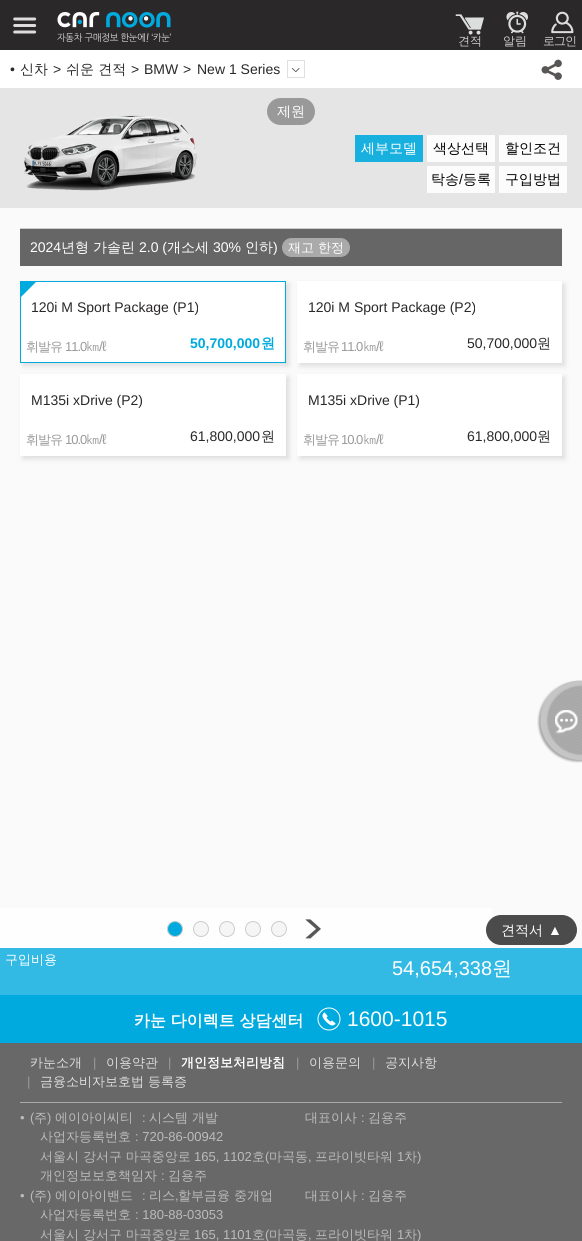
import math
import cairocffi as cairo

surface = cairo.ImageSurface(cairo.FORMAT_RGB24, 582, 1241)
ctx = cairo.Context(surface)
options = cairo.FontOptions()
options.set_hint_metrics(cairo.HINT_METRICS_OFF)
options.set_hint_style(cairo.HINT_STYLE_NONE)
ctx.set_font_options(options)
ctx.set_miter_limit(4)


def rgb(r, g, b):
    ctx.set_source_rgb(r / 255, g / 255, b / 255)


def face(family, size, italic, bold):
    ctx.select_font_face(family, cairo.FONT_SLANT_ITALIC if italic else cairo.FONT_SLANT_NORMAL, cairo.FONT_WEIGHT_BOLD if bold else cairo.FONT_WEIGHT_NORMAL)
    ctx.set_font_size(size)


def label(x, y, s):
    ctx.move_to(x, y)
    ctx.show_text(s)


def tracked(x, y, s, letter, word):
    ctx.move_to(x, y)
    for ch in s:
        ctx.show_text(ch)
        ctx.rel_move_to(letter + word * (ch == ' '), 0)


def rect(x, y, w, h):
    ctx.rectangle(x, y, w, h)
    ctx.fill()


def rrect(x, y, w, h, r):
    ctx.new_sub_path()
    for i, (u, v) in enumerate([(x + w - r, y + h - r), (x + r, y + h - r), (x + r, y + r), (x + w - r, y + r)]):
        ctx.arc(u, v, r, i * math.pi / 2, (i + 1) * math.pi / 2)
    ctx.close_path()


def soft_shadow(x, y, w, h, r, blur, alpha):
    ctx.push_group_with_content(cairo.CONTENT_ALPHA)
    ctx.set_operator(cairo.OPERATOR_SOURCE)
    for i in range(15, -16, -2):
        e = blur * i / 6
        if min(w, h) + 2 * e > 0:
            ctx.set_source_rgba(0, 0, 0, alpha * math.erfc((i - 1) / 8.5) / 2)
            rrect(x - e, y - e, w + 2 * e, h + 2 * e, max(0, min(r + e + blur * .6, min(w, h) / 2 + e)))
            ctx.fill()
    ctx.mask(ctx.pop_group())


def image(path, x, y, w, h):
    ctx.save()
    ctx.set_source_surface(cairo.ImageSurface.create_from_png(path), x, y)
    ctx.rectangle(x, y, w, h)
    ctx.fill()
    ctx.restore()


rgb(255, 255, 255)
ctx.paint()
rgb(42, 40, 41)
rect(0, 0, 582, 50)
image('image0.png', 13, 17, 24, 17)
image('image1.png', 57, 12, 114, 30)
image('image2.png', 455, 14, 29, 21)
face('WenQuanYi Zen Hei Medium', 12, 0, 0)
rgb(204, 204, 204)
label(458, 45, '견적')
image('image3.png', 506, 11, 22, 23)
label(503, 45, '알림')
image('image4.png', 551, 11, 23, 23)
tracked(543, 45, '로그인', -1, 0)
face('Liberation Sans', 14, 0, 0)
rgb(42, 40, 41)
label(10, 74, '•')
face('WenQuanYi Zen Hei Medium', 14, 0, 0)
label(20, 74, '신차')
face('Liberation Sans', 14, 0, 0)
label(53, 74, '>')
face('WenQuanYi Zen Hei Medium', 14, 0, 0)
label(66, 74, '쉬운 견적')
face('Liberation Sans', 14, 0, 0)
label(131, 74, '>')
label(144, 74, 'BMW')
label(183, 74, '>')
label(197, 74, 'New 1 Series')
image('image5.png', 292, 68, 8, 4)
ctx.rectangle(287.5, 60.5, 17, 17)
rgb(224, 224, 224)
ctx.set_line_width(1)
ctx.stroke()
image('image6.png', 541, 59, 21, 21)
rgb(229, 229, 229)
rect(0, 88, 582, 120)
rgb(153, 153, 153)
rrect(267, 98, 48, 27, 13.5)
ctx.fill()
face('WenQuanYi Zen Hei Medium', 14, 0, 0)
rgb(255, 255, 255)
label(277, 116, '제원')
image('image7.png', 23, 115, 174, 76)
rgb(23, 176, 223)
rect(355, 135, 68, 27)
rgb(255, 255, 255)
label(361, 153, '세부모델')
rgb(252, 252, 252)
rect(427, 135, 68, 27)
rgb(0, 0, 0)
label(433, 153, '색상선택')
rgb(252, 252, 252)
rect(499, 135, 68, 27)
rgb(0, 0, 0)
label(505, 153, '할인조건')
rgb(252, 252, 252)
rect(427, 166, 68, 27)
rgb(0, 0, 0)
label(431, 184, '탁송')
face('Liberation Sans', 14, 0, 0)
label(459, 184, '/')
face('WenQuanYi Zen Hei Medium', 14, 0, 0)
label(463, 184, '등록')
rgb(252, 252, 252)
rect(499, 166, 68, 27)
rgb(0, 0, 0)
label(505, 184, '구입방법')
rgb(250, 250, 250)
rect(0, 208, 582, 740)
rgb(102, 102, 102)
rect(20, 229, 542, 37)
rgb(204, 204, 204)
rect(20, 228, 542, 1)
face('Liberation Sans', 14, 0, 0)
rgb(255, 255, 255)
label(30, 252, '2024')
face('WenQuanYi Zen Hei Medium', 14, 0, 0)
label(61, 252, '년형')
label(93, 252, '가솔린')
face('Liberation Sans', 14, 0, 0)
label(139, 252, '2.0 (')
face('WenQuanYi Zen Hei Medium', 14, 0, 0)
label(167, 252, '개소세')
face('Liberation Sans', 14, 0, 0)
label(213, 252, '30%')
face('WenQuanYi Zen Hei Medium', 14, 0, 0)
label(245, 252, '인하')
face('Liberation Sans', 14, 0, 0)
label(273, 252, ')')
rgb(170, 170, 170)
rrect(282, 238, 68, 19, 9.5)
ctx.fill()
face('WenQuanYi Zen Hei Medium', 13, 0, 0)
rgb(255, 255, 255)
label(288, 252, '재고 한정')
rgb(221, 221, 221)
soft_shadow(23, 284, 266, 82, 0, 2.5, 1)
rgb(255, 255, 255)
ctx.rectangle(20.5, 281.5, 265, 81)
ctx.fill_preserve()
rgb(0, 170, 222)
ctx.stroke()
ctx.new_path()
ctx.move_to(21, 282)
ctx.line_to(36, 282)
ctx.line_to(21, 297)
ctx.close_path()
ctx.fill()
face('Liberation Sans', 14, 0, 0)
rgb(42, 40, 41)
label(31, 312, '120i M Sport Package (P1)')
face('WenQuanYi Zen Hei Medium', 13, 0, 0)
rgb(153, 153, 153)
tracked(26, 351, '휘발유', -1, 0)
face('Liberation Sans', 13, 0, 0)
tracked(65, 351, '11.0', -1, 0)
face('WenQuanYi Zen Hei Medium', 14, 0, 0)
tracked(86, 351, '㎞', -1, 0)
face('Liberation Sans', 14, 0, 0)
tracked(99, 351, '/ℓ', -1, 0)
face('Liberation Sans', 14, 0, 1)
rgb(0, 170, 222)
label(190, 348, '50,700,000')
face('WenQuanYi Zen Hei', 14, 0, 1)
label(261, 348, '원')
rgb(221, 221, 221)
soft_shadow(300, 284, 265, 82, 0, 2.5, 1)
rgb(255, 255, 255)
rect(297, 281, 265, 82)
face('Liberation Sans', 14, 0, 0)
rgb(42, 40, 41)
label(308, 312, '120i M Sport Package (P2)')
face('WenQuanYi Zen Hei Medium', 13, 0, 0)
rgb(153, 153, 153)
tracked(303, 351, '휘발유', -1, 0)
face('Liberation Sans', 13, 0, 0)
tracked(341, 351, '11.0', -1, 0)
face('WenQuanYi Zen Hei Medium', 14, 0, 0)
tracked(363, 351, '㎞', -1, 0)
face('Liberation Sans', 14, 0, 0)
tracked(376, 351, '/ℓ', -1, 0)
rgb(42, 40, 41)
label(467, 348, '50,700,000')
face('WenQuanYi Zen Hei Medium', 14, 0, 0)
label(537, 348, '원')
rgb(221, 221, 221)
soft_shadow(23, 377, 266, 82, 0, 2.5, 1)
rgb(255, 255, 255)
rect(20, 374, 266, 82)
face('Liberation Sans', 14, 0, 0)
rgb(42, 40, 41)
label(31, 405, 'M135i xDrive (P2)')
face('WenQuanYi Zen Hei Medium', 13, 0, 0)
rgb(153, 153, 153)
tracked(26, 444, '휘발유', -1, 0)
face('Liberation Sans', 13, 0, 0)
tracked(65, 444, '10.0', -1, 0)
face('WenQuanYi Zen Hei Medium', 14, 0, 0)
tracked(86, 444, '㎞', -1, 0)
face('Liberation Sans', 14, 0, 0)
tracked(99, 444, '/ℓ', -1, 0)
rgb(42, 40, 41)
label(190, 441, '61,800,000')
face('WenQuanYi Zen Hei Medium', 14, 0, 0)
label(261, 441, '원')
rgb(221, 221, 221)
soft_shadow(300, 377, 265, 82, 0, 2.5, 1)
rgb(255, 255, 255)
rect(297, 374, 265, 82)
face('Liberation Sans', 14, 0, 0)
rgb(42, 40, 41)
label(308, 405, 'M135i xDrive (P1)')
face('WenQuanYi Zen Hei Medium', 13, 0, 0)
rgb(153, 153, 153)
tracked(303, 444, '휘발유', -1, 0)
face('Liberation Sans', 13, 0, 0)
tracked(341, 444, '10.0', -1, 0)
face('WenQuanYi Zen Hei Medium', 14, 0, 0)
tracked(363, 444, '㎞', -1, 0)
face('Liberation Sans', 14, 0, 0)
tracked(376, 444, '/ℓ', -1, 0)
rgb(42, 40, 41)
label(467, 441, '61,800,000')
face('WenQuanYi Zen Hei Medium', 14, 0, 0)
label(537, 441, '원')
rgb(254, 254, 254)
rect(0, 908, 492, 40)
rgb(0, 170, 222)
ctx.new_path()
ctx.arc(175, 929, 7.5, 0, 2 * math.pi)
ctx.fill_preserve()
rgb(204, 204, 204)
ctx.stroke()
rgb(245, 245, 245)
ctx.arc(201, 929, 7.5, 0, 2 * math.pi)
ctx.fill_preserve()
rgb(204, 204, 204)
ctx.stroke()
rgb(245, 245, 245)
ctx.arc(227, 929, 7.5, 0, 2 * math.pi)
ctx.fill_preserve()
rgb(204, 204, 204)
ctx.stroke()
rgb(245, 245, 245)
ctx.arc(253, 929, 7.5, 0, 2 * math.pi)
ctx.fill_preserve()
rgb(204, 204, 204)
ctx.stroke()
rgb(245, 245, 245)
ctx.arc(279, 929, 7.5, 0, 2 * math.pi)
ctx.fill_preserve()
rgb(204, 204, 204)
ctx.stroke()
image('image8.png', 305, 919, 16, 20)
ctx.set_source_rgba(0, 0, 0, 0.7)
rrect(486, 915, 91, 30, 15)
ctx.fill()
rgb(255, 255, 255)
label(501, 935, '견적서')
face('Liberation Sans', 14, 0, 0)
label(548, 935, '▲')
rgb(50, 186, 228)
rect(0, 948, 582, 47)
face('WenQuanYi Zen Hei Medium', 13, 0, 0)
rgb(255, 255, 255)
label(5, 964, '구입비용')
face('Liberation Sans', 20, 0, 0)
label(392, 975, '54,654,338')
face('WenQuanYi Zen Hei Medium', 20, 0, 0)
label(492, 975, '원')
rgb(105, 104, 105)
rect(0, 1043, 582, 198)
rgb(0, 170, 222)
rect(0, 995, 582, 48)
face('WenQuanYi Zen Hei', 16, 0, 1)
rgb(255, 255, 255)
label(134, 1026, '카눈 다이렉트 상담센터')
image('image9.png', 317, 1007, 24, 24)
face('Liberation Sans', 21, 0, 0)
label(347, 1026, '1600-1015')
rgb(170, 170, 170)
rect(20, 1102, 542, 1)
face('WenQuanYi Zen Hei Medium', 13, 0, 0)
rgb(221, 221, 221)
label(30, 1067, '카눈소개')
face('Liberation Sans', 13, 0, 0)
rgb(153, 153, 153)
label(93, 1067, '|')
face('WenQuanYi Zen Hei Medium', 13, 0, 0)
rgb(221, 221, 221)
label(106, 1067, '이용약관')
face('Liberation Sans', 13, 0, 0)
rgb(153, 153, 153)
label(168, 1067, '|')
face('WenQuanYi Zen Hei', 13, 0, 1)
rgb(255, 255, 255)
label(181, 1067, '개인정보처리방침')
face('Liberation Sans', 13, 0, 0)
rgb(153, 153, 153)
label(296, 1067, '|')
face('WenQuanYi Zen Hei Medium', 13, 0, 0)
rgb(221, 221, 221)
label(309, 1067, '이용문의')
face('Liberation Sans', 13, 0, 0)
rgb(153, 153, 153)
label(372, 1067, '|')
face('WenQuanYi Zen Hei Medium', 13, 0, 0)
rgb(221, 221, 221)
label(385, 1067, '공지사항')
face('Liberation Sans', 13, 0, 0)
rgb(153, 153, 153)
label(27, 1086, '|')
face('WenQuanYi Zen Hei Medium', 13, 0, 0)
rgb(221, 221, 221)
label(40, 1086, '금융소비자보호법 등록증')
face('Liberation Sans', 13, 0, 0)
rgb(187, 187, 187)
label(20, 1122, '•')
label(30, 1122, '(')
face('WenQuanYi Zen Hei Medium', 13, 0, 0)
label(34, 1122, '주')
face('Liberation Sans', 13, 0, 0)
label(47, 1122, ')')
face('WenQuanYi Zen Hei Medium', 13, 0, 0)
label(55, 1122, '에이아이씨티')
face('Liberation Sans', 13, 0, 0)
label(142, 1122, ':')
face('WenQuanYi Zen Hei Medium', 13, 0, 0)
label(149, 1122, '시스템 개발')
label(305, 1122, '대표이사')
face('Liberation Sans', 13, 0, 0)
label(361, 1122, ':')
face('WenQuanYi Zen Hei Medium', 13, 0, 0)
label(368, 1122, '김용주')
label(40, 1141, '사업자등록번호')
face('Liberation Sans', 13, 0, 0)
label(135, 1141, ': 720-86-00942')
face('WenQuanYi Zen Hei Medium', 13, 0, 0)
label(40, 1161, '서울시 강서구 마곡중앙로')
face('Liberation Sans', 13, 0, 0)
label(194, 1161, '165, 1102')
face('WenQuanYi Zen Hei Medium', 13, 0, 0)
label(252, 1161, '호')
face('Liberation Sans', 13, 0, 0)
label(265, 1161, '(')
face('WenQuanYi Zen Hei Medium', 13, 0, 0)
label(269, 1161, '마곡동')
face('Liberation Sans', 13, 0, 0)
label(308, 1161, ',')
face('WenQuanYi Zen Hei Medium', 13, 0, 0)
label(315, 1161, '프라이빗타워')
face('Liberation Sans', 13, 0, 0)
label(397, 1161, '1')
face('WenQuanYi Zen Hei Medium', 13, 0, 0)
label(404, 1161, '차')
face('Liberation Sans', 13, 0, 0)
label(417, 1161, ')')
face('WenQuanYi Zen Hei Medium', 13, 0, 0)
label(40, 1180, '개인정보보호책임자')
face('Liberation Sans', 13, 0, 0)
label(161, 1180, ':')
face('WenQuanYi Zen Hei Medium', 13, 0, 0)
label(168, 1180, '김용주')
face('Liberation Sans', 13, 0, 0)
label(20, 1200, '•')
label(30, 1200, '(')
face('WenQuanYi Zen Hei Medium', 13, 0, 0)
label(34, 1200, '주')
face('Liberation Sans', 13, 0, 0)
label(47, 1200, ')')
face('WenQuanYi Zen Hei Medium', 13, 0, 0)
label(55, 1200, '에이아이밴드')
face('Liberation Sans', 13, 0, 0)
label(142, 1200, ':')
face('WenQuanYi Zen Hei Medium', 13, 0, 0)
label(149, 1200, '리스')
face('Liberation Sans', 13, 0, 0)
label(175, 1200, ',')
face('WenQuanYi Zen Hei Medium', 13, 0, 0)
label(178, 1200, '할부금융 중개업')
label(305, 1200, '대표이사')
face('Liberation Sans', 13, 0, 0)
label(361, 1200, ':')
face('WenQuanYi Zen Hei Medium', 13, 0, 0)
label(368, 1200, '김용주')
label(40, 1219, '사업자등록번호')
face('Liberation Sans', 13, 0, 0)
label(135, 1219, ': 180-88-03053')
face('WenQuanYi Zen Hei Medium', 13, 0, 0)
label(40, 1239, '서울시 강서구 마곡중앙로')
face('Liberation Sans', 13, 0, 0)
label(194, 1239, '165, 1101')
face('WenQuanYi Zen Hei Medium', 13, 0, 0)
label(252, 1239, '호')
face('Liberation Sans', 13, 0, 0)
label(265, 1239, '(')
face('WenQuanYi Zen Hei Medium', 13, 0, 0)
label(269, 1239, '마곡동')
face('Liberation Sans', 13, 0, 0)
label(308, 1239, ',')
face('WenQuanYi Zen Hei Medium', 13, 0, 0)
label(315, 1239, '프라이빗타워')
face('Liberation Sans', 13, 0, 0)
label(397, 1239, '1')
face('WenQuanYi Zen Hei Medium', 13, 0, 0)
label(404, 1239, '차')
face('Liberation Sans', 13, 0, 0)
label(417, 1239, ')')
image('image10.png', 537, 680, 45, 83)
surface.write_to_png('render.png')
